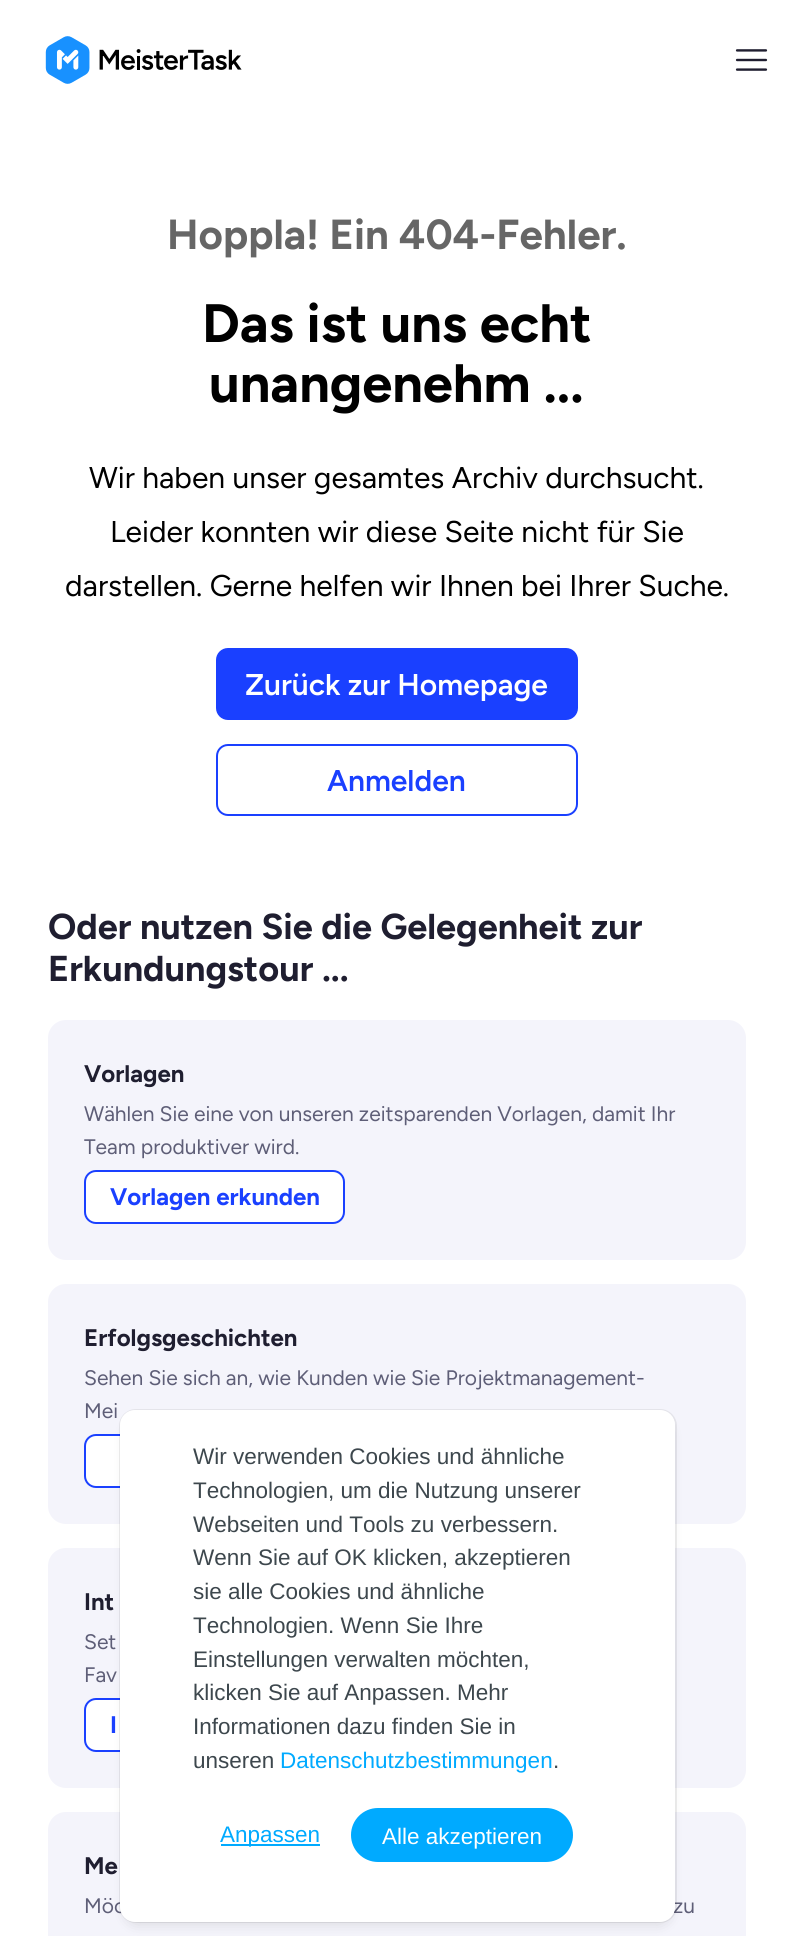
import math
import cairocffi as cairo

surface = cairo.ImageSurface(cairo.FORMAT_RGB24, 793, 1936)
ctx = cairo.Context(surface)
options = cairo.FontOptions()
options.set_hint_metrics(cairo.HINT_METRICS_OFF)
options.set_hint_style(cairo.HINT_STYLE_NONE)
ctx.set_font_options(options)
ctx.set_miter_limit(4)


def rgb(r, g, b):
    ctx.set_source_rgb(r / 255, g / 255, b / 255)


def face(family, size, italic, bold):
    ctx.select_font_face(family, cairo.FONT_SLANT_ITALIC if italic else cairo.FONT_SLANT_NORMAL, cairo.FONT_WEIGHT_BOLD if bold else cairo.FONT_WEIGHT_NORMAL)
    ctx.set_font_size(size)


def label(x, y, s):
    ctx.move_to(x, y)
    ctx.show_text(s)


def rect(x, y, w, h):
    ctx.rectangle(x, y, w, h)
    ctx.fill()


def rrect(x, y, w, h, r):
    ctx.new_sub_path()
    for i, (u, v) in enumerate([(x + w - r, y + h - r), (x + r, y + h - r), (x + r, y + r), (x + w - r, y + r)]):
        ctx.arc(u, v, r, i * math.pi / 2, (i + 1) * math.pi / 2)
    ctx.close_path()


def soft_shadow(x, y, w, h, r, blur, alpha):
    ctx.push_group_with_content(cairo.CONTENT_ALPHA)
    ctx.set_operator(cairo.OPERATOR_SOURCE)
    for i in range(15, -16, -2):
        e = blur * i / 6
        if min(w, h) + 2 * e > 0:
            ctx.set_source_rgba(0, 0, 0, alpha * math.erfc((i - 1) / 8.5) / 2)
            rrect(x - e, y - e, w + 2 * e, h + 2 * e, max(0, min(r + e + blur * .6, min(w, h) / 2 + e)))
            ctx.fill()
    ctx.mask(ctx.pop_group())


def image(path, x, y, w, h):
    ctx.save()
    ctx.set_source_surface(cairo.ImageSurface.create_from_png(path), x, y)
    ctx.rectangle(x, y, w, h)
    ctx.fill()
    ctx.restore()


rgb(255, 255, 255)
ctx.paint()
image('image0.png', 45, 36, 197, 48)
image('image1.png', 735, 49, 33, 22)
face('Figtree', 42, 0, 1)
rgb(102, 102, 102)
label(167, 249, 'Hoppla! Ein 404-Fehler.')
face('Figtree', 54, 0, 1)
rgb(0, 0, 0)
label(202, 342, 'Das ist uns echt')
label(209, 402, 'unangenehm ...')
face('Figtree', 30, 0, 0)
label(89, 488, 'Wir haben unser gesamtes Archiv durchsucht.')
label(110, 542, 'Leider konnten wir diese Seite nicht für Sie')
label(65, 596, 'darstellen. Gerne helfen wir Ihnen bei Ihrer Suche.')
rgb(26, 64, 255)
rrect(216, 648, 362, 72, 12)
ctx.fill()
face('Figtree SemiBold', 30, 0, 0)
rgb(255, 255, 255)
label(245, 695, 'Zurück zur Homepage')
rrect(217, 745, 360, 70, 11)
rgb(26, 64, 255)
ctx.stroke()
label(327, 791, 'Anmelden')
face('Figtree', 36, 0, 1)
rgb(31, 30, 48)
label(48, 939, 'Oder nutzen Sie die Gelegenheit zur')
label(48, 981, 'Erkundungstour ...')
rgb(244, 244, 251)
rrect(48, 1020, 698, 240, 18)
ctx.fill()
face('Figtree', 24, 0, 1)
rgb(31, 30, 48)
label(84, 1082, 'Vorlagen')
face('Figtree', 21, 0, 0)
rgb(94, 94, 119)
label(84, 1121, 'Wählen Sie eine von unseren zeitsparenden Vorlagen, damit Ihr')
label(84, 1154, 'Team produktiver wird.')
rgb(255, 255, 255)
rrect(85, 1171, 259, 52, 11)
ctx.fill_preserve()
rgb(26, 64, 255)
ctx.stroke()
face('Figtree', 24, 0, 1)
label(110, 1205, 'Vorlagen erkunden')
rgb(244, 244, 251)
rrect(48, 1284, 698, 240, 18)
ctx.fill()
rgb(31, 30, 48)
label(84, 1346, 'Erfolgsgeschichten')
face('Figtree', 21, 0, 0)
rgb(94, 94, 119)
label(84, 1385, 'Sehen Sie sich an, wie Kunden wie Sie Projektmanagement-')
label(84, 1418, 'Mei')
rgb(255, 255, 255)
rrect(85, 1435, 298, 52, 11)
ctx.fill_preserve()
rgb(26, 64, 255)
ctx.stroke()
rgb(244, 244, 251)
rrect(48, 1548, 698, 240, 18)
ctx.fill()
face('Figtree', 24, 0, 1)
rgb(31, 30, 48)
label(84, 1610, 'Int')
face('Figtree', 21, 0, 0)
rgb(94, 94, 119)
label(84, 1649, 'Set')
label(84, 1682, 'Fav')
rgb(255, 255, 255)
rrect(85, 1699, 309, 52, 11)
ctx.fill_preserve()
rgb(26, 64, 255)
ctx.stroke()
face('Figtree', 24, 0, 1)
label(110, 1733, 'I')
rgb(244, 244, 251)
rrect(48, 1812, 698, 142, 18)
ctx.fill()
rgb(31, 30, 48)
label(84, 1874, 'Me')
face('Figtree', 21, 0, 0)
rgb(94, 94, 119)
label(84, 1913, 'Möc')
label(673, 1913, 'zu')
rgb(0, 0, 0)
soft_shadow(128, 1425, 540, 497, 8, 7.5, 0.15)
rrect(120, 1410, 556, 512, 16)
ctx.set_source_rgba(0, 0, 0, 0.07)
ctx.stroke()
rgb(255, 255, 255)
rrect(120, 1410, 555, 512, 15)
ctx.fill()
face('Liberation Sans', 22.5, 0, 0)
rgb(61, 71, 77)
label(193, 1464, 'Wir verwenden Cookies und ähnliche')
label(193, 1498, 'Technologien, um die Nutzung unserer')
label(193, 1532, 'Webseiten und Tools zu verbessern.')
label(193, 1565, 'Wenn Sie auf OK klicken, akzeptieren')
label(193, 1599, 'sie alle Cookies und ähnliche')
label(193, 1633, 'Technologien. Wenn Sie Ihre')
label(193, 1667, 'Einstellungen verwalten möchten,')
label(193, 1700, 'klicken Sie auf Anpassen. Mehr')
label(193, 1734, 'Informationen dazu finden Sie in')
label(193, 1768, 'unseren')
rgb(0, 170, 255)
label(280, 1768, 'Datenschutzbestimmungen')
rgb(61, 71, 77)
label(553, 1768, '.')
rgb(0, 170, 255)
rect(221, 1844, 99, 2)
label(220, 1842, 'Anpassen')
rrect(352, 1809, 220, 52, 26)
ctx.fill_preserve()
ctx.stroke()
rgb(255, 255, 255)
label(382, 1844, 'Alle akzeptieren')
surface.write_to_png('render.png')
